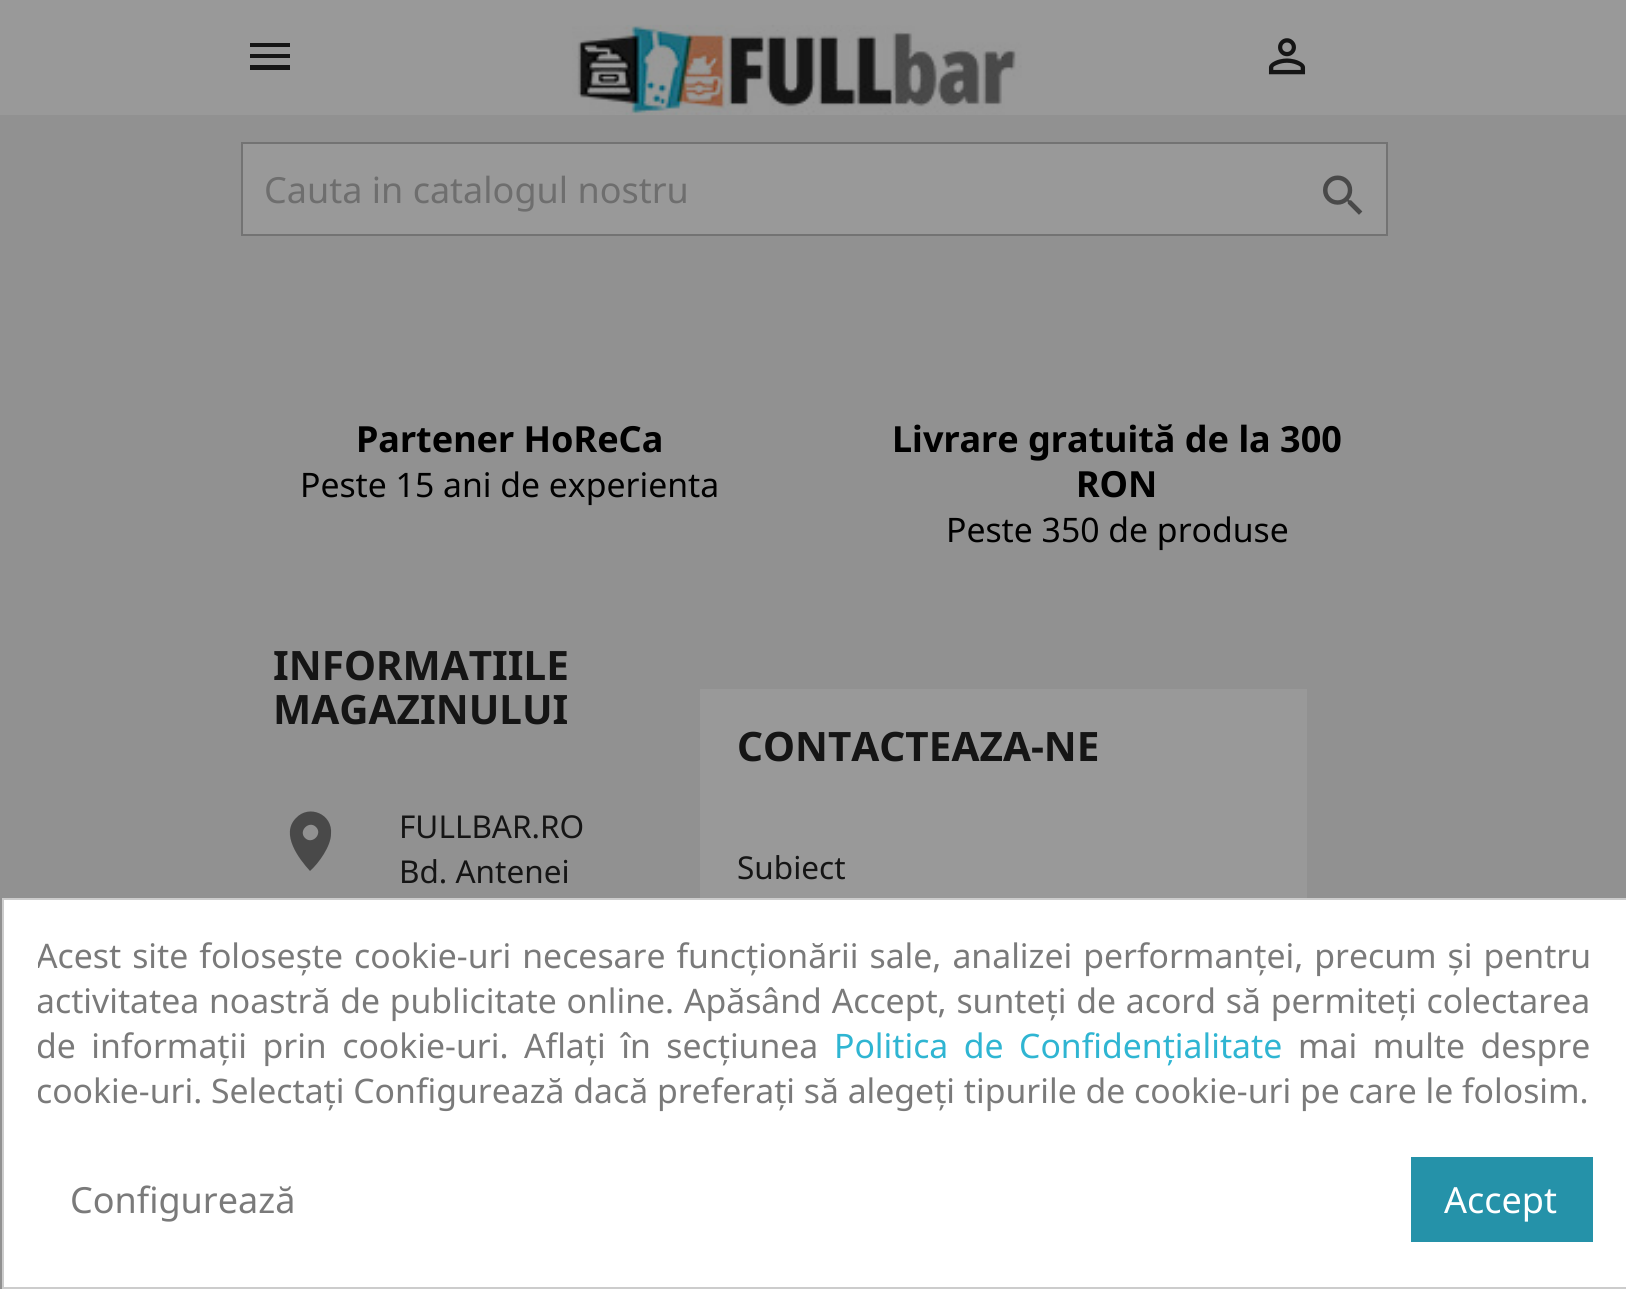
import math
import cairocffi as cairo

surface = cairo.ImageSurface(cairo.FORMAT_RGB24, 1626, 1289)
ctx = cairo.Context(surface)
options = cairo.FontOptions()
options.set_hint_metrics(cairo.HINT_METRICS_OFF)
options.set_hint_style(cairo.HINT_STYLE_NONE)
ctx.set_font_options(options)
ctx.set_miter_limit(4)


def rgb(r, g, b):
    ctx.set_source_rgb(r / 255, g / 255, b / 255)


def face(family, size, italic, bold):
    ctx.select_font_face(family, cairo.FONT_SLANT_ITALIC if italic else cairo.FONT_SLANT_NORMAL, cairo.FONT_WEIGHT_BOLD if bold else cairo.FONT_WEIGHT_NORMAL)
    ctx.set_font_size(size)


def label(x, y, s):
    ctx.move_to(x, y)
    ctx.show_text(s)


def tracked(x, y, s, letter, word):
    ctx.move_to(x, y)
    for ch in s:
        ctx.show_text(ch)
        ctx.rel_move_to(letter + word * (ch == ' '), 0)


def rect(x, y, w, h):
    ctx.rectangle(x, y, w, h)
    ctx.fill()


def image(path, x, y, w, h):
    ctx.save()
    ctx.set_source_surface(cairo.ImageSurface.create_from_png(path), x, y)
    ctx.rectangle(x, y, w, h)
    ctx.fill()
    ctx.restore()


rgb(145, 145, 145)
ctx.paint()
rgb(153, 153, 153)
rect(0, 0, 1626, 115)
rgb(21, 21, 21)
ctx.new_path()
ctx.move_to(250, 43)
ctx.line_to(290, 43)
ctx.line_to(290, 47)
ctx.line_to(250, 47)
ctx.close_path()
ctx.move_to(250, 58)
ctx.line_to(250, 54)
ctx.line_to(290, 54)
ctx.line_to(290, 58)
ctx.close_path()
ctx.move_to(250, 70)
ctx.line_to(250, 65)
ctx.line_to(290, 65)
ctx.line_to(290, 70)
ctx.close_path()
ctx.fill()
image('image0.png', 572, 24, 450, 91)
image('image1.png', 1268, 38, 38, 37)
rgb(153, 153, 153)
ctx.rectangle(242, 143, 1145, 92)
ctx.fill_preserve()
rgb(115, 115, 115)
ctx.stroke()
face('Noto Sans', 36, 0, 0)
rgb(110, 110, 110)
label(264, 203, 'Cauta in catalogul nostru')
image('image2.png', 1323, 175, 40, 40)
face('Noto Sans', 36, 0, 1)
rgb(0, 0, 0)
label(356, 452, 'Partener HoReCa')
face('Noto Sans', 33.75, 0, 0)
label(300, 497, 'Peste 15 ani de experienta')
face('Noto Sans', 36, 0, 1)
label(892, 452, 'Livrare gratuită de la 300')
label(1076, 497, 'RON')
face('Noto Sans', 33.75, 0, 0)
label(946, 542, 'Peste 350 de produse')
face('Noto Sans', 40.5, 0, 1)
rgb(21, 21, 21)
label(273, 680, 'INFORMATIILE')
label(273, 724, 'MAGAZINULUI')
rgb(73, 73, 73)
ctx.new_path()
ctx.move_to(305, 838)
ctx.curve_to(312, 845, 323, 834, 316, 827)
ctx.curve_to(309, 820, 298, 831, 305, 838)
ctx.close_path()
ctx.move_to(296, 818)
ctx.curve_to(309, 804, 333, 814, 331, 834)
ctx.curve_to(331, 846, 319, 863, 310, 871)
ctx.curve_to(299, 859, 280, 834, 296, 818)
ctx.close_path()
ctx.fill()
face('Noto Sans', 31.5, 0, 0)
rgb(21, 21, 21)
label(399, 838, 'FULLBAR.RO')
label(399, 883, 'Bd. Antenei')
rgb(153, 153, 153)
rect(700, 689, 607, 209)
face('Noto Sans', 40.5, 0, 1)
rgb(21, 21, 21)
label(737, 761, 'CONTACTEAZA-NE')
face('Noto Sans', 31.5, 0, 0)
label(737, 879, 'Subiect')
rgb(255, 255, 255)
ctx.rectangle(3, 899, 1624, 389)
ctx.fill_preserve()
rgb(204, 204, 204)
ctx.stroke()
ctx.save()
ctx.rectangle(38, 932, 1555, 180)
ctx.clip()
face('Noto Sans', 33.75, 0, 0)
rgb(122, 122, 122)
tracked(36, 968, 'Acest site folosește cookie-uri necesare funcționării sale, analizei performanței, precum și pentru', 0, 2.25)
tracked(36, 1013, 'activitatea noastră de publicitate online. Apăsând Accept, sunteți de acord să permiteți colectarea', 0, 1)
tracked(36, 1058, 'de informații prin cookie-uri. Aflați în secțiunea', 0, 6.75)
ctx.restore()
face('Noto Sans', 33.75, 0, 0)
rgb(47, 181, 210)
tracked(834, 1058, 'Politica de Confidențialitate', 0, 6.75)
rgb(122, 122, 122)
tracked(1298, 1058, 'mai multe despre', 0, 6.75)
ctx.save()
ctx.rectangle(38, 932, 1555, 180)
ctx.clip()
label(36, 1103, 'cookie-uri. Selectați Configurează dacă preferați să alegeți tipurile de cookie-uri pe care le folosim.')
ctx.restore()
face('Noto Sans', 36, 0, 0)
label(70, 1213, 'Configurează')
rgb(37, 146, 169)
rect(1411, 1157, 182, 85)
rgb(255, 255, 255)
label(1444, 1213, 'Accept')
surface.write_to_png('render.png')
